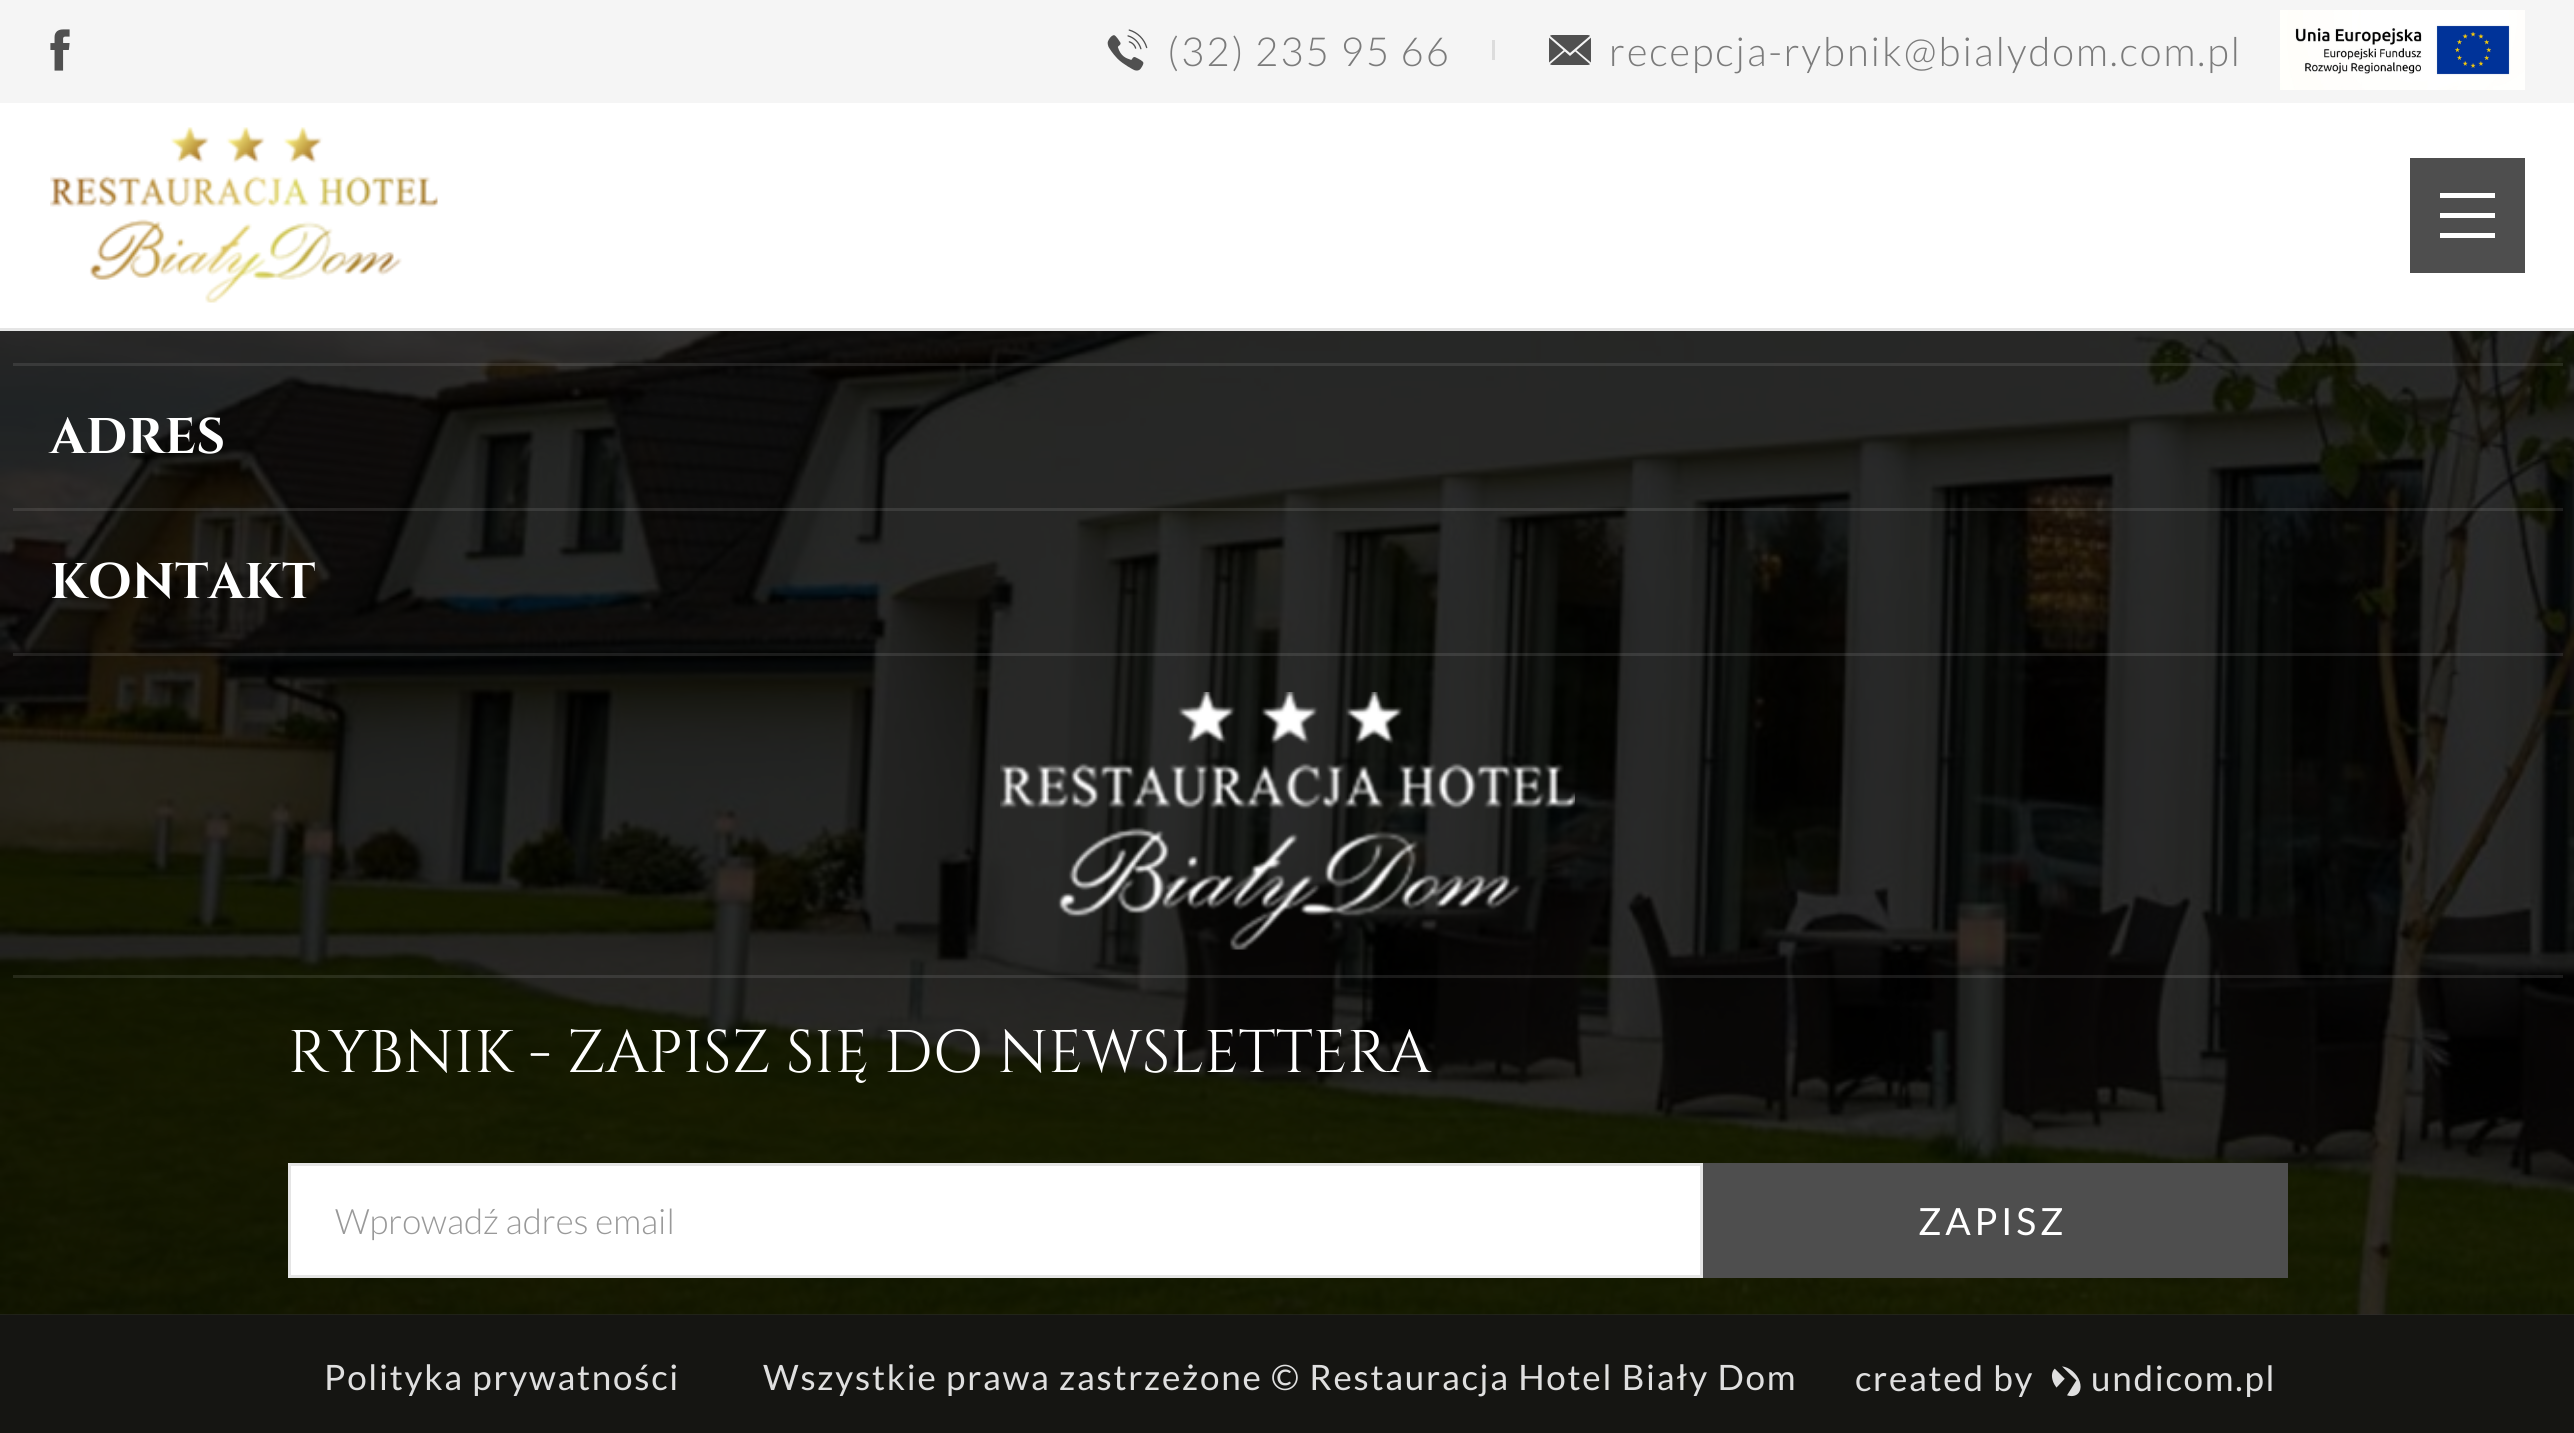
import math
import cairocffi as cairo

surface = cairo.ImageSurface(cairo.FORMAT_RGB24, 2574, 1433)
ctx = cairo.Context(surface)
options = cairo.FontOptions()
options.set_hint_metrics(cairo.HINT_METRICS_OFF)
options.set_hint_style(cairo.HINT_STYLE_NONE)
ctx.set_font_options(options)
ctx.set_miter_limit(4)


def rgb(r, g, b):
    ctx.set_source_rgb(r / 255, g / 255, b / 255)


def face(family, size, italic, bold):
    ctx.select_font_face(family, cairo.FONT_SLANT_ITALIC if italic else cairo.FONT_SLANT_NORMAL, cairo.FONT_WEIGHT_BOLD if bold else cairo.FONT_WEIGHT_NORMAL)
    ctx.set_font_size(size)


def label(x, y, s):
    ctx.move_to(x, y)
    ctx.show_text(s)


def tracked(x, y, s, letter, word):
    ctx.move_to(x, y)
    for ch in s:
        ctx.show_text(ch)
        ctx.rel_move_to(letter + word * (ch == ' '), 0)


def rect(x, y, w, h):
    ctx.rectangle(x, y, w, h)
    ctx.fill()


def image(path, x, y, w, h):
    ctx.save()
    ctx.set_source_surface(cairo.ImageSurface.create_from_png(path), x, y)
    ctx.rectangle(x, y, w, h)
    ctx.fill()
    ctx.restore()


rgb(21, 21, 18)
ctx.paint()
rgb(255, 255, 255)
rect(0, 103, 2574, 225)
rgb(229, 229, 229)
rect(0, 328, 2574, 3)
rgb(245, 245, 245)
rect(0, 0, 2574, 103)
image('image0.png', 50, 29, 20, 42)
image('image1.png', 1107, 29, 41, 42)
face('Lato Light', 40, 0, 0)
rgb(123, 123, 123)
tracked(1167, 66, '(32) 235 95 66', 2, 0)
rgb(220, 220, 220)
rect(1492, 40, 3, 20)
image('image2.png', 1549, 35, 42, 30)
rgb(123, 123, 123)
tracked(1609, 66, 'recepcja-rybnik@bialydom.com.pl', 2, 0)
image('image3.png', 2280, 10, 245, 80)
image('image4.png', 50, 127, 388, 176)
rgb(78, 78, 78)
rect(2410, 158, 115, 115)
rgb(255, 255, 255)
rect(2440, 193, 55, 5)
rect(2440, 213, 55, 5)
rect(2440, 233, 55, 5)
rgb(46, 46, 46)
rect(0, 1314, 2574, 1)
image('image5.png', 0, 331, 2574, 984)
ctx.set_source_rgba(1, 1, 1, 0.1)
rect(13, 363, 2550, 3)
rect(13, 508, 2550, 3)
face('Cinzel', 50, 0, 1)
rgb(255, 255, 255)
label(50, 453, 'ADRES')
ctx.set_source_rgba(1, 1, 1, 0.1)
rect(13, 653, 2550, 3)
rgb(255, 255, 255)
label(50, 598, 'KONTAKT')
ctx.set_source_rgba(1, 1, 1, 0.1)
rect(13, 975, 2550, 3)
image('image6.png', 1000, 692, 575, 258)
face('Cinzel', 60, 0, 0)
rgb(255, 255, 255)
label(288, 1072, 'RYBNIK - ZAPISZ SIĘ DO NEWSLETTERA')
ctx.rectangle(289.5, 1164.5, 1412, 112)
ctx.fill_preserve()
rgb(229, 229, 229)
ctx.set_line_width(3)
ctx.stroke()
face('Lato Light', 35, 0, 0)
rgb(153, 153, 153)
label(335, 1234, 'Wprowadź adres email')
rgb(78, 78, 78)
rect(1703, 1163, 585, 115)
face('Lato', 37.5, 0, 0)
rgb(255, 255, 255)
tracked(1918, 1235, 'ZAPISZ', 3.75, 0)
face('Lato', 35, 0, 0)
rgb(223, 223, 223)
tracked(324, 1390, 'Polityka prywatności', 1.75, 0)
tracked(763, 1390, 'Wszystkie prawa zastrzeżone © Restauracja Hotel Biały Dom', 1.75, 0)
tracked(1855, 1391, 'created by', 1.75, 0)
image('image7.png', 2051, 1366, 30, 31)
tracked(2091, 1391, 'undicom.pl', 1.75, 0)
surface.write_to_png('render.png')
